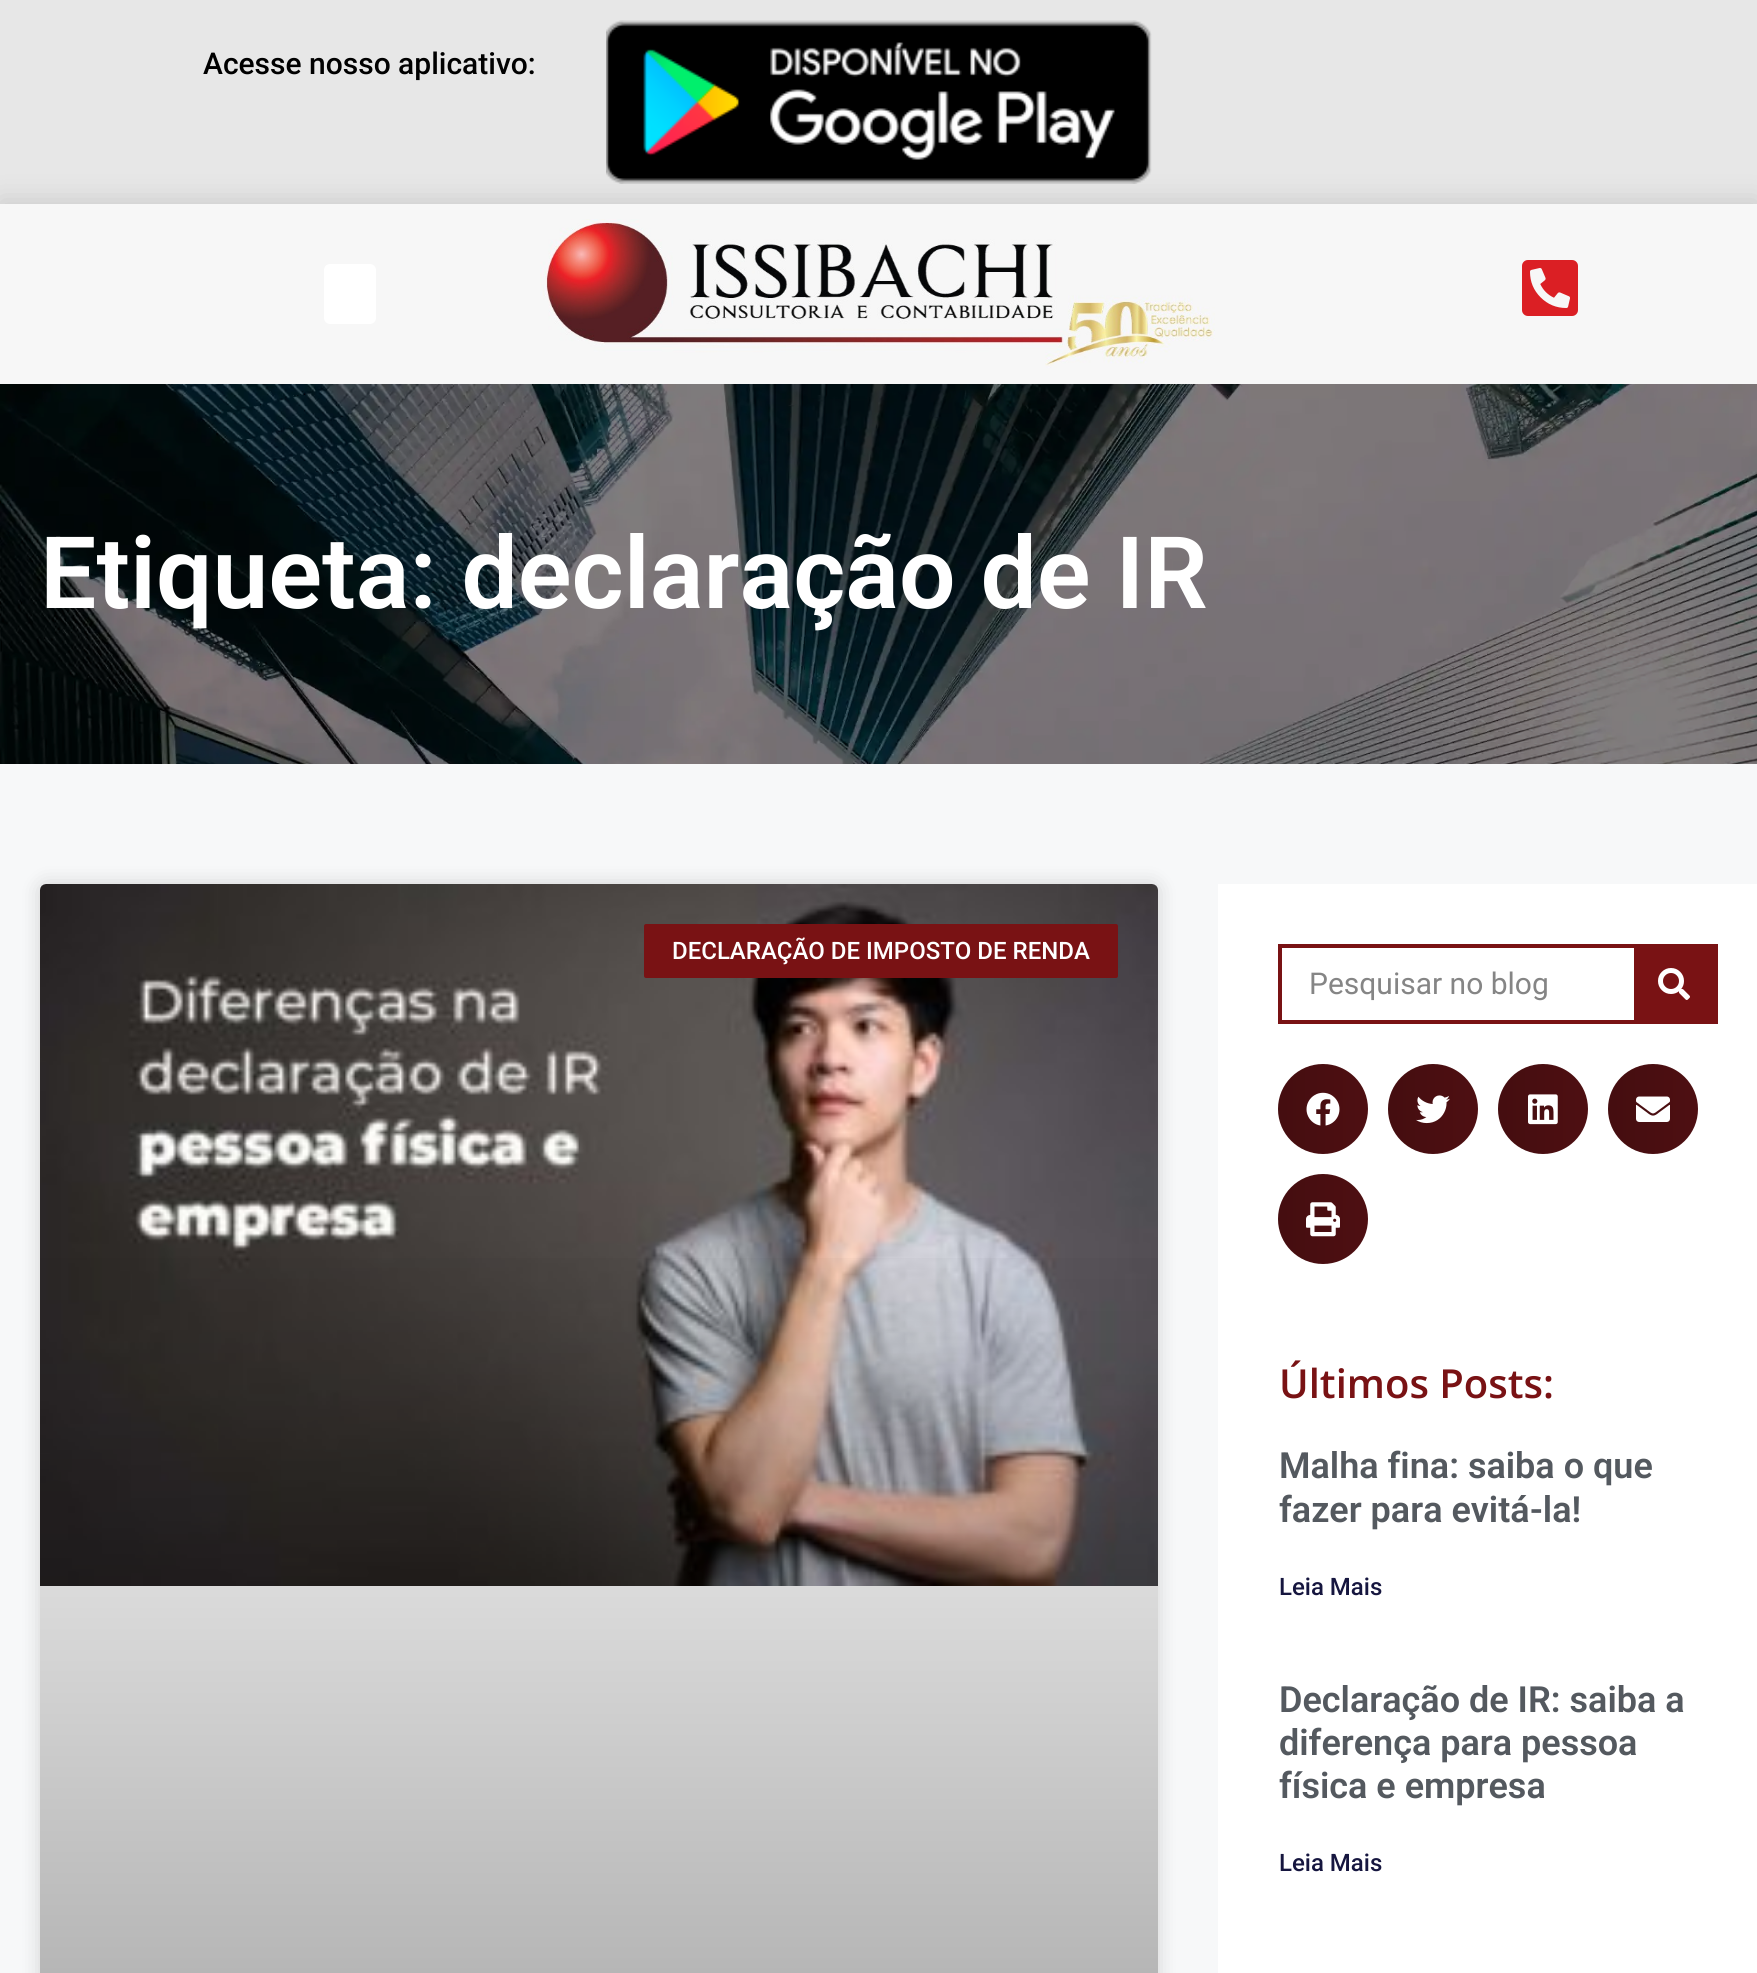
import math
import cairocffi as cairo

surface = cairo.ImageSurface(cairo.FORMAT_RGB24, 1757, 1973)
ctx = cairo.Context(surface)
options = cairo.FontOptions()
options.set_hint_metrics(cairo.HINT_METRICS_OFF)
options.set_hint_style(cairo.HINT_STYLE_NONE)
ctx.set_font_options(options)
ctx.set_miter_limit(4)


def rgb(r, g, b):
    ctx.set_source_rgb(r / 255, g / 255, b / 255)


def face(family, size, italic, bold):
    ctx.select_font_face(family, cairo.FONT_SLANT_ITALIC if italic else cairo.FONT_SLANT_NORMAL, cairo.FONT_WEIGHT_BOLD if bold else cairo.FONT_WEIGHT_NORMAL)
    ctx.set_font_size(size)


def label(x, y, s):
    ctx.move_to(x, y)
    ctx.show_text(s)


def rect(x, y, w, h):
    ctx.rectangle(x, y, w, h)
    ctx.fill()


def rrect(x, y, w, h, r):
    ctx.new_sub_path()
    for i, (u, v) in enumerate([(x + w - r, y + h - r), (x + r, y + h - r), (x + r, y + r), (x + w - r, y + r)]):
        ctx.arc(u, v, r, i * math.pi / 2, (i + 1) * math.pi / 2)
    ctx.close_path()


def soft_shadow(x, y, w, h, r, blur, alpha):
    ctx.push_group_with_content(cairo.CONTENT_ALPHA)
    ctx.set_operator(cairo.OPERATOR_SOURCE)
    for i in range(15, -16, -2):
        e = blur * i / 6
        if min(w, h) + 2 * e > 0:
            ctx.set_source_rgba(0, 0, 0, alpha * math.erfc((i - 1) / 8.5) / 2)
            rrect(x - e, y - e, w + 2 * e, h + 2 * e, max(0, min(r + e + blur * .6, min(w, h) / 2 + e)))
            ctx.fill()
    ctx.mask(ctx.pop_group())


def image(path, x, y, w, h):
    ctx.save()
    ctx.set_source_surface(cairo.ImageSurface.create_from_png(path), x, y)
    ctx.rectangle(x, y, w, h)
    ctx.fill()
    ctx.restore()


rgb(247, 248, 249)
ctx.paint()
rgb(231, 231, 231)
rect(0, 0, 1757, 204)
face('Roboto Medium', 30, 0, 0)
rgb(0, 0, 0)
label(203, 74, 'Acesse nosso aplicativo:')
image('image0.png', 606, 20, 546, 164)
rgb(0, 0, 0)
soft_shadow(0, 200, 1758, 180, 0, 14, 0.12)
rgb(247, 247, 247)
rect(0, 204, 1757, 180)
rgb(255, 255, 255)
rrect(324, 264, 52, 60, 6)
ctx.fill()
image('image1.png', 540, 219, 675, 149)
image('image2.png', 1522, 260, 56, 56)
image('image3.png', 0, 384, 1757, 380)
face('Roboto SemiBold', 100, 0, 0)
label(40, 608, 'Etiqueta: declaração de IR')
rgb(0, 0, 0)
soft_shadow(40, 884, 1118, 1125, 6, 10, 0.15)
rgb(255, 255, 255)
rrect(40, 884, 1118, 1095, 6)
ctx.fill()
image('image4.png', 40, 884, 1118, 702)
gradient = cairo.LinearGradient(599, 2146, 599, 884)
gradient.add_color_stop_rgba(0, 0, 0, 0, 0.35)
gradient.add_color_stop_rgba(0.75, 0, 0, 0, 0)
ctx.set_source(gradient)
rect(40, 1258, 1118, 715)
rgb(121, 18, 20)
rrect(644, 924, 474, 54, 2)
ctx.fill()
face('Roboto Medium', 24, 0, 0)
rgb(255, 255, 255)
label(672, 959, 'DECLARAÇÃO DE IMPOSTO DE RENDA')
rect(1218, 884, 539, 1089)
ctx.rectangle(1280, 946, 436, 76)
rgb(121, 18, 20)
ctx.set_line_width(4)
ctx.stroke()
face('Roboto', 30, 0, 0)
rgb(133, 133, 133)
label(1309, 994, 'Pesquisar no blog')
rgb(121, 18, 20)
rect(1634, 948, 80, 72)
image('image5.png', 1658, 968, 32, 32)
rgb(78, 15, 18)
ctx.arc(1323, 1109, 45, 0, 2 * math.pi)
ctx.fill()
gradient = cairo.LinearGradient(1278, 1109, 1368, 1109)
gradient.add_color_stop_rgba(0, 0, 0, 0, 0.12)
gradient.add_color_stop_rgba(1, 0, 0, 0, 0)
ctx.set_source(gradient)
ctx.arc(1323, 1109, 45, 0, 2 * math.pi)
ctx.fill()
image('image6.png', 1306, 1092, 34, 34)
rgb(78, 15, 18)
ctx.arc(1433, 1109, 45, 0, 2 * math.pi)
ctx.fill()
gradient = cairo.LinearGradient(1388, 1109, 1478, 1109)
gradient.add_color_stop_rgba(0, 0, 0, 0, 0.12)
gradient.add_color_stop_rgba(1, 0, 0, 0, 0)
ctx.set_source(gradient)
ctx.arc(1433, 1109, 45, 0, 2 * math.pi)
ctx.fill()
image('image7.png', 1416, 1095, 34, 29)
rgb(78, 15, 18)
ctx.arc(1543, 1109, 45, 0, 2 * math.pi)
ctx.fill()
gradient = cairo.LinearGradient(1498, 1109, 1588, 1109)
gradient.add_color_stop_rgba(0, 0, 0, 0, 0.12)
gradient.add_color_stop_rgba(1, 0, 0, 0, 0)
ctx.set_source(gradient)
ctx.arc(1543, 1109, 45, 0, 2 * math.pi)
ctx.fill()
image('image8.png', 1528, 1094, 30, 31)
rgb(78, 15, 18)
ctx.arc(1653, 1109, 45, 0, 2 * math.pi)
ctx.fill()
gradient = cairo.LinearGradient(1608, 1109, 1698, 1109)
gradient.add_color_stop_rgba(0, 0, 0, 0, 0.12)
gradient.add_color_stop_rgba(1, 0, 0, 0, 0)
ctx.set_source(gradient)
ctx.arc(1653, 1109, 45, 0, 2 * math.pi)
ctx.fill()
image('image9.png', 1636, 1096, 34, 26)
rgb(78, 15, 18)
ctx.arc(1323, 1219, 45, 0, 2 * math.pi)
ctx.fill()
gradient = cairo.LinearGradient(1278, 1219, 1368, 1219)
gradient.add_color_stop_rgba(0, 0, 0, 0, 0.12)
gradient.add_color_stop_rgba(1, 0, 0, 0, 0)
ctx.set_source(gradient)
ctx.arc(1323, 1219, 45, 0, 2 * math.pi)
ctx.fill()
image('image10.png', 1306, 1202, 34, 35)
face('Open Sans SemiBold', 40, 0, 0)
rgb(121, 18, 20)
label(1279, 1398, 'Últimos Posts:')
face('Roboto SemiBold', 36, 0, 0)
rgb(84, 89, 95)
label(1279, 1478, 'Malha fina: saiba o que')
label(1279, 1522, 'fazer para evitá-la!')
face('Roboto Medium', 24, 0, 0)
rgb(22, 22, 63)
label(1279, 1595, 'Leia Mais')
face('Roboto SemiBold', 36, 0, 0)
rgb(84, 89, 95)
label(1279, 1712, 'Declaração de IR: saiba a')
label(1279, 1755, 'diferença para pessoa')
label(1279, 1798, 'física e empresa')
face('Roboto Medium', 24, 0, 0)
rgb(22, 22, 63)
label(1279, 1871, 'Leia Mais')
surface.write_to_png('render.png')
